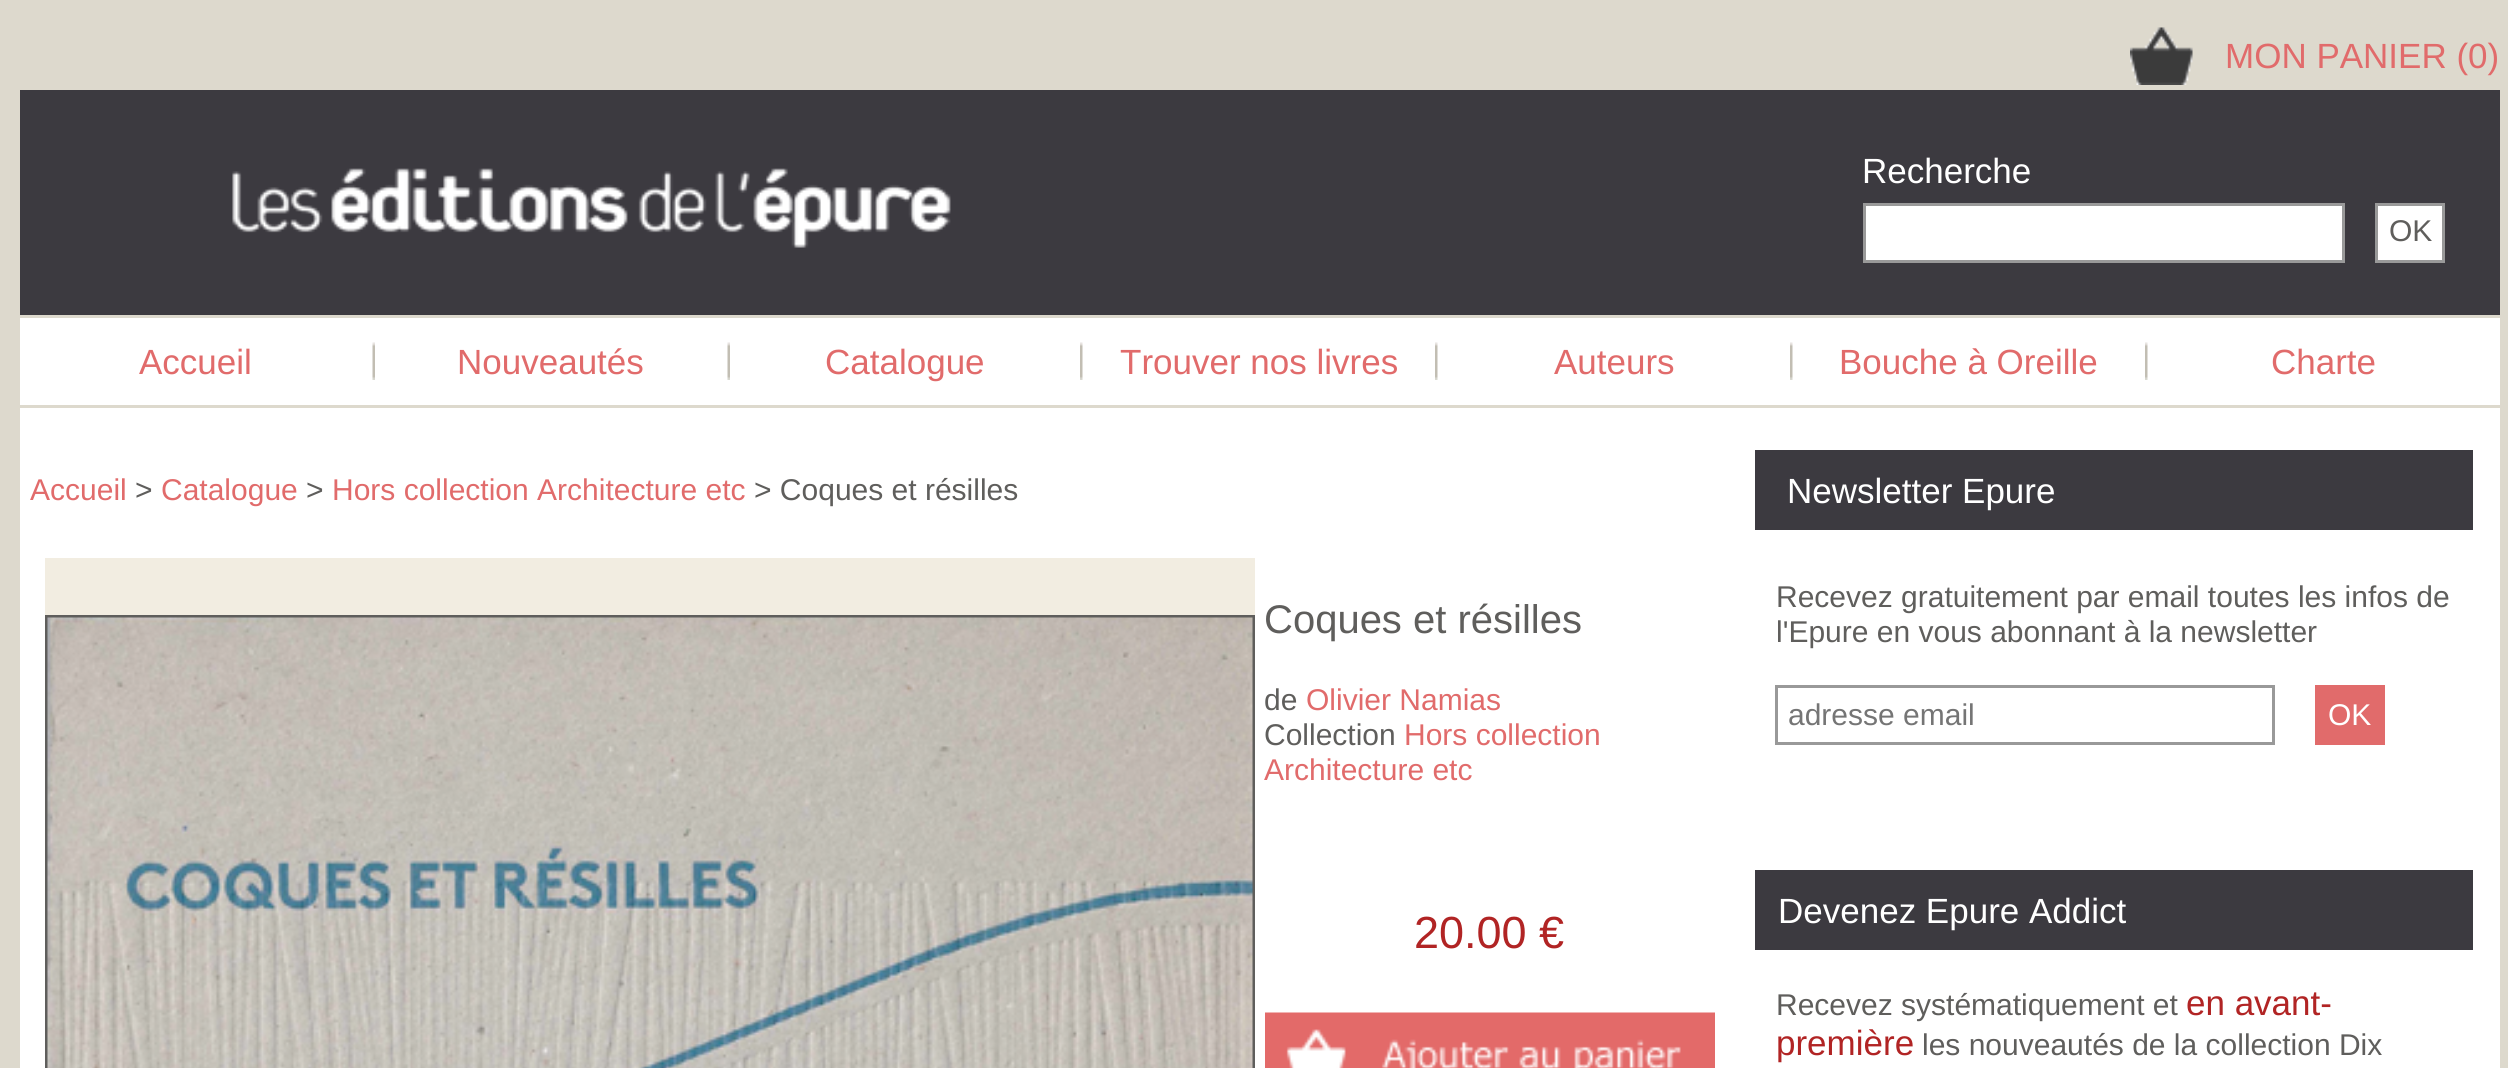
import math
import cairocffi as cairo

surface = cairo.ImageSurface(cairo.FORMAT_RGB24, 2508, 1068)
ctx = cairo.Context(surface)
options = cairo.FontOptions()
options.set_hint_metrics(cairo.HINT_METRICS_OFF)
options.set_hint_style(cairo.HINT_STYLE_NONE)
ctx.set_font_options(options)
ctx.set_miter_limit(4)


def rgb(r, g, b):
    ctx.set_source_rgb(r / 255, g / 255, b / 255)


def face(family, size, italic, bold):
    ctx.select_font_face(family, cairo.FONT_SLANT_ITALIC if italic else cairo.FONT_SLANT_NORMAL, cairo.FONT_WEIGHT_BOLD if bold else cairo.FONT_WEIGHT_NORMAL)
    ctx.set_font_size(size)


def label(x, y, s):
    ctx.move_to(x, y)
    ctx.show_text(s)


def rect(x, y, w, h):
    ctx.rectangle(x, y, w, h)
    ctx.fill()


def image(path, x, y, w, h):
    ctx.save()
    ctx.set_source_surface(cairo.ImageSurface.create_from_png(path), x, y)
    ctx.rectangle(x, y, w, h)
    ctx.fill()
    ctx.restore()


rgb(221, 217, 205)
ctx.paint()
image('image0.png', 2130, 27, 63, 58)
face('Liberation Sans', 35, 0, 0)
rgb(225, 107, 107)
label(2225, 68, 'MON PANIER (0)')
rgb(60, 58, 64)
rect(20, 90, 2480, 225)
image('image1.png', 232, 168, 719, 80)
rgb(255, 255, 255)
label(1862, 183, 'Recherche')
ctx.rectangle(1864.5, 204.5, 479, 57)
ctx.fill_preserve()
rgb(153, 153, 153)
ctx.set_line_width(3)
ctx.stroke()
rgb(255, 255, 255)
ctx.rectangle(2376.5, 204.5, 67, 57)
ctx.fill_preserve()
rgb(153, 153, 153)
ctx.stroke()
face('Liberation Sans', 30, 0, 0)
rgb(95, 94, 92)
label(2389, 241, 'OK')
rgb(255, 255, 255)
rect(20, 318, 2480, 750)
rgb(221, 217, 205)
rect(20, 405, 2480, 3)
face('Liberation Sans', 35, 0, 0)
rgb(225, 107, 107)
label(139, 374, 'Accueil')
image('image2.png', 372, 342, 3, 38)
label(457, 374, 'Nouveautés')
image('image2.png', 727, 342, 3, 38)
label(825, 374, 'Catalogue')
image('image3.png', 1080, 342, 3, 38)
label(1120, 374, 'Trouver nos livres')
image('image3.png', 1435, 342, 3, 38)
label(1554, 374, 'Auteurs')
image('image3.png', 1790, 342, 3, 38)
label(1839, 374, 'Bouche à Oreille')
image('image3.png', 2145, 342, 3, 38)
label(2271, 374, 'Charte')
face('Liberation Sans', 30, 0, 0)
label(30, 500, 'Accueil')
rgb(95, 94, 92)
label(135, 500, '>')
rgb(225, 107, 107)
label(161, 500, 'Catalogue')
rgb(95, 94, 92)
label(306, 500, '>')
rgb(225, 107, 107)
label(332, 500, 'Hors collection Architecture etc')
rgb(95, 94, 92)
label(754, 500, '> Coques et résilles')
rgb(242, 237, 225)
rect(45, 558, 1210, 57)
ctx.rectangle(46.5, 616.5, 1207, 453)
rgb(95, 94, 92)
ctx.stroke()
image('image4.png', 47, 617, 1206, 451)
face('Liberation Sans', 40, 0, 0)
label(1264, 633, 'Coques et résilles')
face('Liberation Sans', 30, 0, 0)
label(1264, 710, 'de')
rgb(225, 107, 107)
label(1306, 710, 'Olivier Namias')
rgb(95, 94, 92)
label(1264, 745, 'Collection')
rgb(225, 107, 107)
label(1404, 745, 'Hors collection')
label(1264, 780, 'Architecture etc')
face('Liberation Sans', 45, 0, 0)
rgb(177, 36, 36)
label(1414, 948, '20.00 €')
image('image5.png', 1265, 1012, 450, 56)
rgb(60, 58, 64)
rect(1755, 450, 718, 80)
face('Liberation Sans', 35, 0, 0)
rgb(255, 255, 255)
label(1787, 503, 'Newsletter Epure')
face('Liberation Sans', 30, 0, 0)
rgb(95, 94, 92)
label(1776, 607, 'Recevez gratuitement par email toutes les infos de')
label(1776, 642, 'l\'Epure en vous abonnant à la newsletter')
ctx.rectangle(1776.5, 686.5, 497, 57)
rgb(153, 153, 153)
ctx.stroke()
rgb(117, 117, 117)
label(1788, 725, 'adresse email')
rgb(225, 107, 107)
rect(2315, 685, 70, 60)
rgb(255, 255, 255)
label(2328, 725, 'OK')
rgb(60, 58, 64)
rect(1755, 870, 718, 80)
face('Liberation Sans', 35, 0, 0)
rgb(255, 255, 255)
label(1778, 923, 'Devenez Epure Addict')
face('Liberation Sans', 30, 0, 0)
rgb(95, 94, 92)
label(1776, 1015, 'Recevez systématiquement et')
face('Liberation Sans', 35, 0, 0)
rgb(177, 36, 36)
label(2186, 1015, 'en avant-')
label(1776, 1055, 'première')
face('Liberation Sans', 30, 0, 0)
rgb(95, 94, 92)
label(1922, 1055, 'les nouveautés de la collection Dix')
surface.write_to_png('render.png')
